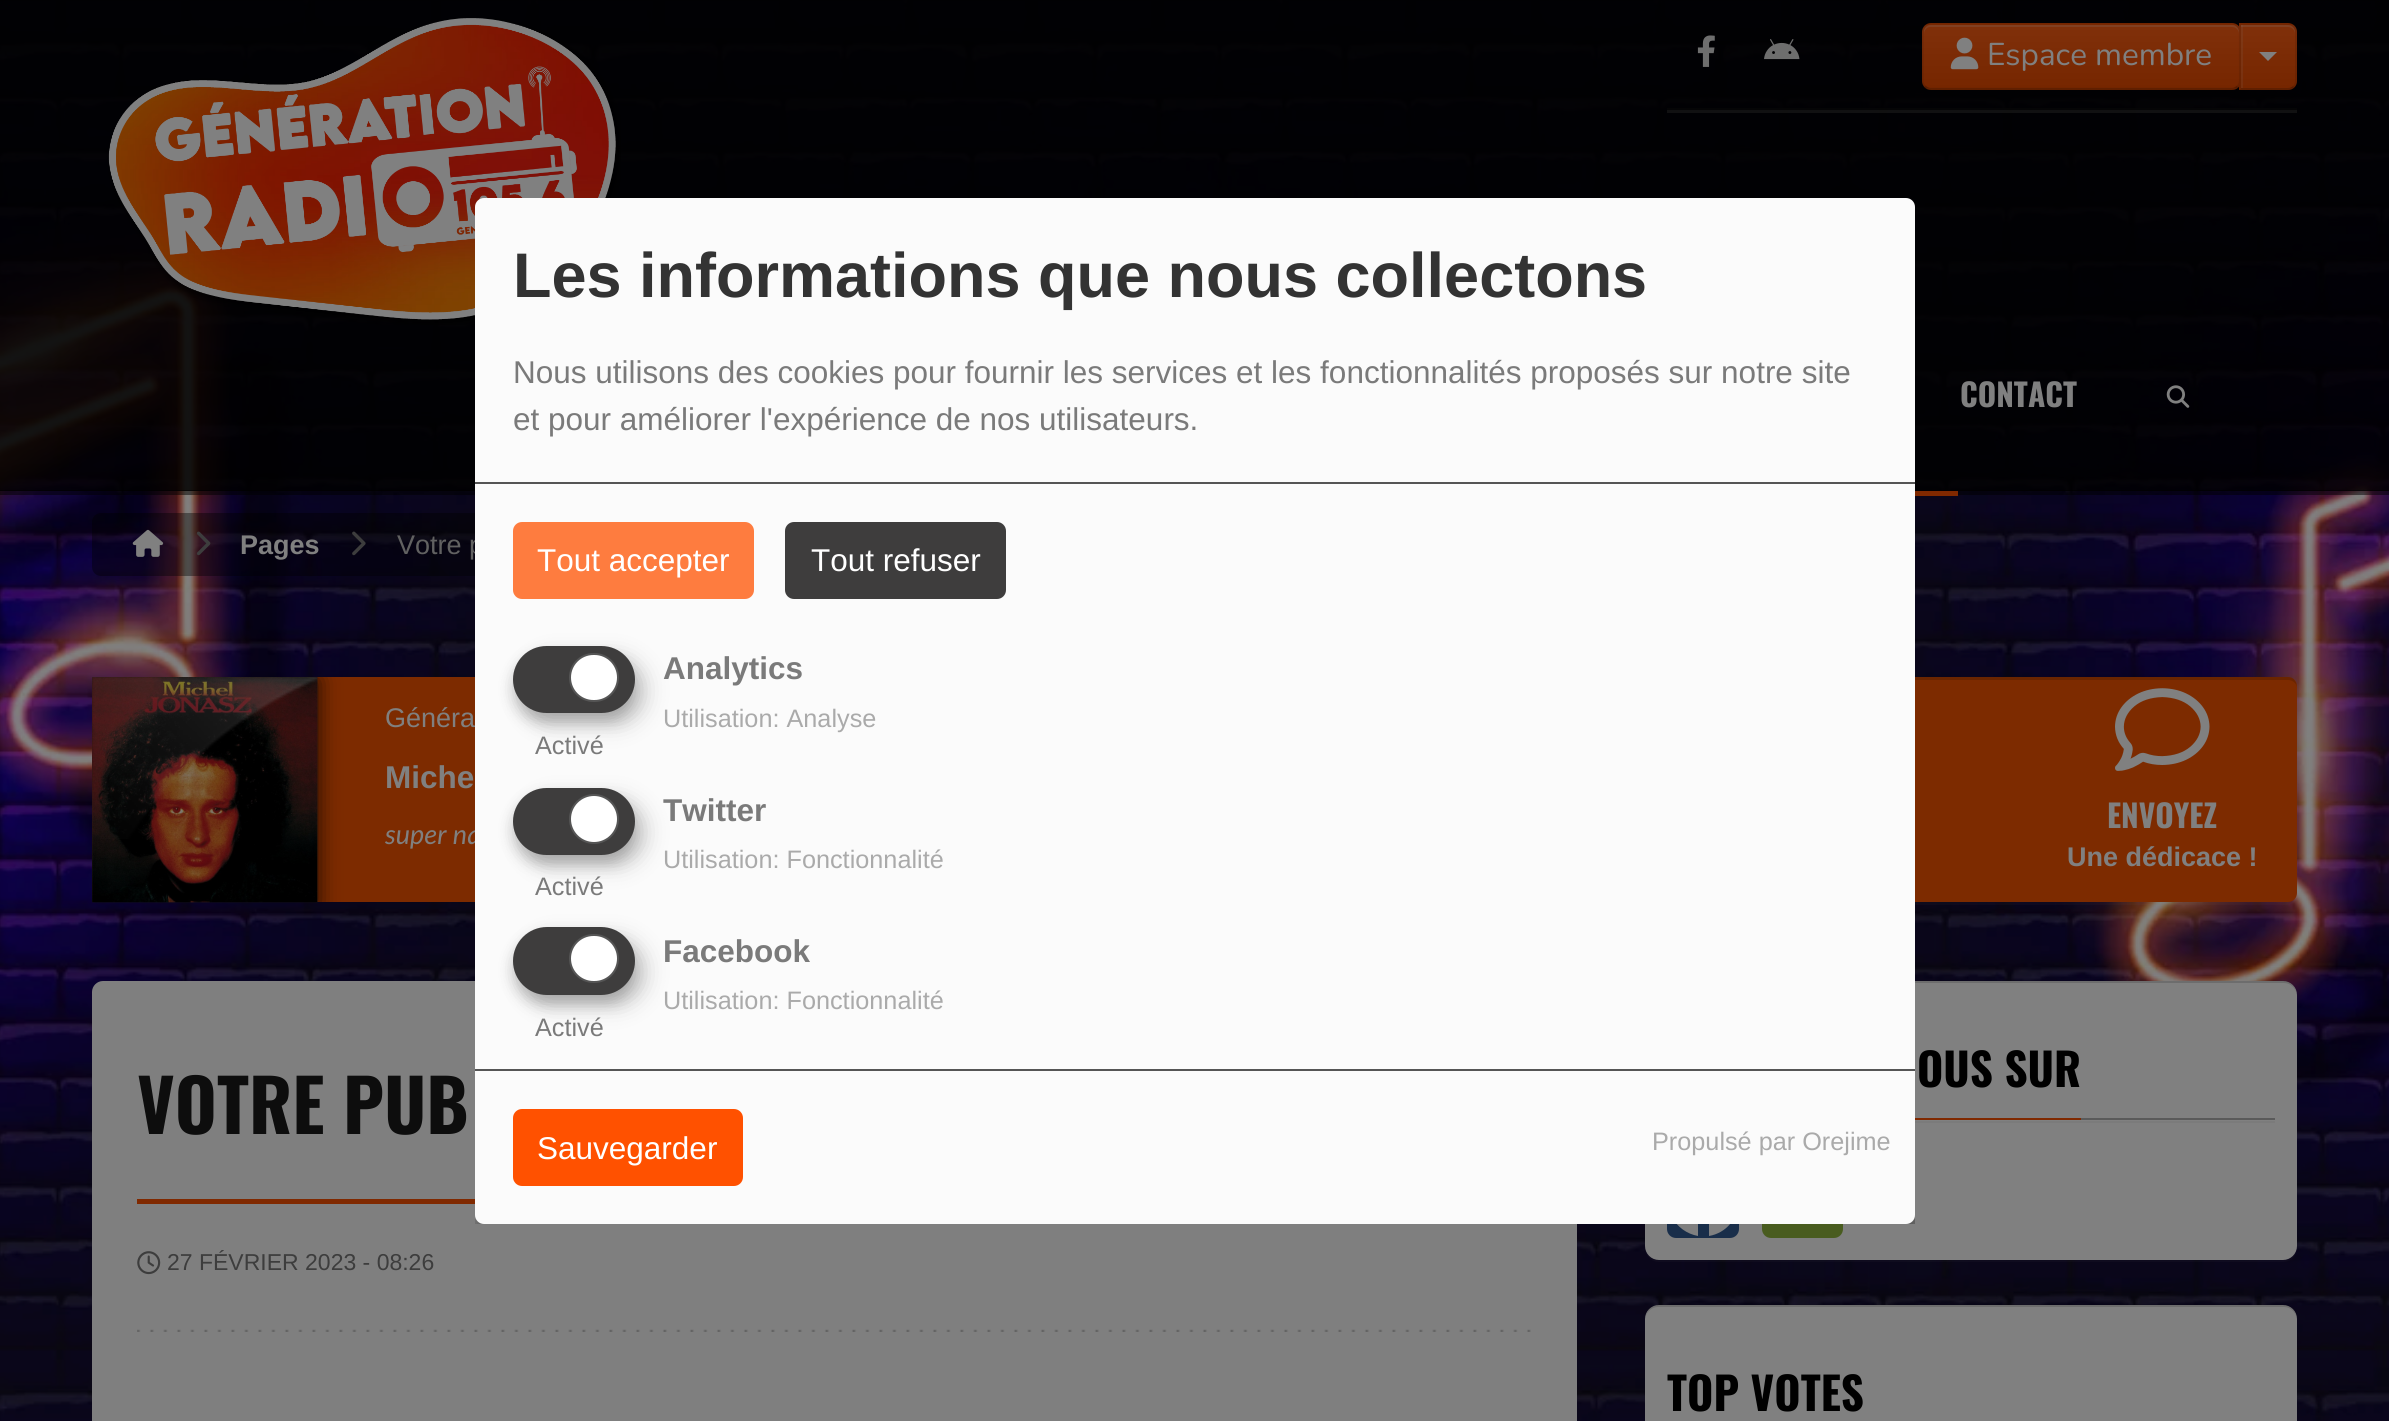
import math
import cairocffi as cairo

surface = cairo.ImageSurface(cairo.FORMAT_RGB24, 2389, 1421)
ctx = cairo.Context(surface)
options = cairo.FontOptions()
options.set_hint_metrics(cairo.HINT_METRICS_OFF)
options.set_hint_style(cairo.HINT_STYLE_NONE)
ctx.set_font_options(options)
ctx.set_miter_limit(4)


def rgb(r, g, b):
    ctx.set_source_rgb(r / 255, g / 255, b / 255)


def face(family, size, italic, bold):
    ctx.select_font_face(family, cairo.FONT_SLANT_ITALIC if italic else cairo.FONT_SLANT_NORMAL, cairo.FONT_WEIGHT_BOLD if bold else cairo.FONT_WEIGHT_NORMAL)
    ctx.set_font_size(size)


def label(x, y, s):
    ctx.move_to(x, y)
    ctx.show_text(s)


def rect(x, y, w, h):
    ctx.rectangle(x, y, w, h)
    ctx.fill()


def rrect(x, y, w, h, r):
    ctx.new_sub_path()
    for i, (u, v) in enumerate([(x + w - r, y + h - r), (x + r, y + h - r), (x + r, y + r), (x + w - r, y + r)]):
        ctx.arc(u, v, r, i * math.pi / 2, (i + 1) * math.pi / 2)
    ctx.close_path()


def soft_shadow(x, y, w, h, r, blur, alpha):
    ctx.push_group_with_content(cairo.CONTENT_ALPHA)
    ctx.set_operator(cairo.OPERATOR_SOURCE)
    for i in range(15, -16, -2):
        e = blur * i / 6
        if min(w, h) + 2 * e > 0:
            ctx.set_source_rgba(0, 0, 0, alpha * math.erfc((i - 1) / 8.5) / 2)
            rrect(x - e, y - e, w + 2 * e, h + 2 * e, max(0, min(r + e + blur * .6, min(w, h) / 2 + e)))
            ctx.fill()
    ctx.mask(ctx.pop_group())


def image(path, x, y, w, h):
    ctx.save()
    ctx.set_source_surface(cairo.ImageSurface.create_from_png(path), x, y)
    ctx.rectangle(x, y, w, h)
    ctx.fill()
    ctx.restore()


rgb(255, 255, 255)
ctx.paint()
image('image0.png', 0, 0, 2389, 1421)
ctx.set_source_rgba(0, 0, 0, 0.5)
ctx.new_path()
ctx.move_to(0, 490)
ctx.line_to(0, 495)
ctx.line_to(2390, 495)
ctx.line_to(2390, 5)
ctx.line_to(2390, 490)
ctx.close_path()
ctx.fill()
ctx.set_source_rgba(0, 0, 0, 0.85)
rect(0, 0, 2389, 491)
image('image1.png', 108, 18, 513, 307)
ctx.set_source_rgba(0.082, 0.082, 0.082, 0.85)
ctx.new_path()
ctx.move_to(1667, 2)
ctx.line_to(1667, 113)
ctx.line_to(2297, 113)
ctx.line_to(2297, 110)
ctx.line_to(1667, 110)
ctx.close_path()
ctx.fill()
ctx.set_source_rgba(0.024, 0.024, 0.024, 0.85)
rect(1667, 108, 630, 2)
image('image2.png', 1697, 35, 18, 32)
image('image3.png', 1764, 39, 36, 21)
rgb(128, 41, 0)
rrect(1922, 23, 319, 67, 9)
ctx.fill()
ctx.save()
rrect(1922, 23, 319, 67, 9)
ctx.clip()
gradient = cairo.LinearGradient(1924, 88, 1924, 25)
gradient.add_color_stop_rgba(0, 0, 0, 0, 0.08)
gradient.add_color_stop_rgba(0.5, 0.251, 0.251, 0.251, 0.08)
gradient.add_color_stop_rgba(1, 0.502, 0.502, 0.502, 0.08)
ctx.set_source(gradient)
rect(1922, 25, 317, 63)
ctx.restore()
rgb(128, 64, 34)
ctx.new_path()
ctx.move_to(1930, 27)
ctx.line_to(2232, 27)
ctx.curve_to(2236, 27, 2239, 30, 2239, 34)
ctx.line_to(2239, 32)
ctx.curve_to(2239, 28, 2236, 25, 2232, 25)
ctx.line_to(1931, 25)
ctx.curve_to(1927, 25, 1924, 28, 1924, 32)
ctx.line_to(1924, 34)
ctx.curve_to(1924, 30, 1927, 27, 1930, 27)
ctx.close_path()
ctx.fill()
ctx.new_path()
ctx.move_to(2237.5, 86.5)
ctx.curve_to(2236, 88, 2234, 89, 2232, 89)
ctx.line_to(1930.5, 89)
ctx.curve_to(1928.5, 89, 1926.5, 88, 1925, 86.5)
ctx.set_source_rgba(0, 0, 0, 0.25)
ctx.set_line_width(2.2)
ctx.stroke()
ctx.new_path()
ctx.move_to(1925, 86.5)
ctx.curve_to(1923.5, 85, 1922.5, 83, 1922.5, 81)
ctx.line_to(1922.5, 31.5)
ctx.curve_to(1922.5, 29.5, 1923.5, 27.5, 1925, 26)
ctx.curve_to(1926.5, 24.5, 1928.5, 23.5, 1930.5, 23.5)
ctx.line_to(2232, 23.5)
ctx.curve_to(2234, 23.5, 2236, 24.5, 2237.5, 26)
ctx.curve_to(2239, 27.5, 2240, 29.5, 2240, 31.5)
ctx.line_to(2240, 81)
ctx.curve_to(2240, 83, 2239, 85, 2237.5, 86.5)
ctx.set_source_rgba(0, 0, 0, 0.1)
ctx.stroke()
image('image4.png', 1950, 37, 29, 33)
face('Nunito', 31.5, 0, 0)
rgb(128, 128, 128)
label(1987, 65, 'Espace membre')
rgb(128, 41, 0)
ctx.new_path()
ctx.move_to(2239, 23)
ctx.line_to(2288, 23)
ctx.curve_to(2293, 23, 2297, 27, 2297, 32)
ctx.line_to(2297, 81)
ctx.curve_to(2297, 86, 2293, 90, 2288, 90)
ctx.line_to(2239, 90)
ctx.close_path()
ctx.fill()
ctx.save()
ctx.new_path()
ctx.move_to(2239, 23)
ctx.line_to(2288, 23)
ctx.curve_to(2293, 23, 2297, 27, 2297, 32)
ctx.line_to(2297, 81)
ctx.curve_to(2297, 86, 2293, 90, 2288, 90)
ctx.line_to(2239, 90)
ctx.close_path()
ctx.clip()
gradient = cairo.LinearGradient(2241, 88, 2241, 25)
gradient.add_color_stop_rgba(0, 0, 0, 0, 0.08)
gradient.add_color_stop_rgba(0.5, 0.251, 0.251, 0.251, 0.08)
gradient.add_color_stop_rgba(1, 0.502, 0.502, 0.502, 0.08)
ctx.set_source(gradient)
rect(2239, 25, 58, 63)
ctx.restore()
rgb(128, 64, 34)
ctx.new_path()
ctx.move_to(2241, 27)
ctx.line_to(2288, 27)
ctx.curve_to(2292, 27, 2295, 30, 2295, 34)
ctx.line_to(2295, 32)
ctx.curve_to(2295, 28, 2292, 25, 2288, 25)
ctx.line_to(2241, 25)
ctx.close_path()
ctx.fill()
ctx.set_source_rgba(0.502, 0.502, 0.502, 0.12)
rect(2241, 25, 2, 63)
ctx.set_source_rgba(0, 0, 0, 0.1)
ctx.new_path()
ctx.move_to(2239, 23)
ctx.line_to(2291, 22)
ctx.line_to(2294, 25)
ctx.line_to(2293, 27)
ctx.curve_to(2292, 26, 2290, 25, 2288, 25)
ctx.line_to(2241, 25)
ctx.close_path()
ctx.fill()
ctx.new_path()
ctx.move_to(2294, 25)
ctx.curve_to(2296, 27, 2297, 30, 2297, 32)
ctx.line_to(2297, 81)
ctx.curve_to(2297, 83, 2296, 86, 2294, 87)
ctx.line_to(2293, 86)
ctx.curve_to(2294, 85, 2295, 83, 2295, 81)
ctx.line_to(2295, 32)
ctx.curve_to(2295, 30, 2294, 28, 2293, 27)
ctx.close_path()
ctx.fill()
ctx.set_source_rgba(0, 0, 0, 0.25)
ctx.new_path()
ctx.move_to(2239, 90)
ctx.line_to(2288, 90)
ctx.curve_to(2291, 90, 2293, 89, 2294, 87)
ctx.line_to(2293, 86)
ctx.curve_to(2292, 87, 2290, 88, 2288, 88)
ctx.line_to(2241, 88)
ctx.close_path()
ctx.fill()
ctx.set_source_rgba(0, 0, 0, 0.1)
ctx.new_path()
ctx.move_to(2241, 25)
ctx.line_to(2241, 88)
ctx.line_to(2239, 90)
ctx.line_to(2239, 23)
ctx.close_path()
ctx.fill()
rgb(128, 128, 128)
ctx.new_path()
ctx.move_to(2259, 52)
ctx.line_to(2277, 52)
ctx.line_to(2268, 61)
ctx.close_path()
ctx.fill()
face('Oswald', 31.5, 0, 1)
label(1960, 407, 'CONTACT')
image('image5.png', 2166, 385, 24, 23)
rgb(128, 41, 0)
rect(1915, 491, 43, 5)
ctx.set_source_rgba(0, 0, 0, 0.4)
rrect(92, 513, 516, 63, 9)
ctx.fill()
image('image6.png', 132, 529, 32, 28)
image('image7.png', 196, 531, 15, 25)
face('Liberation Sans', 27, 0, 1)
rgb(128, 128, 128)
label(240, 554, 'Pages')
image('image8.png', 352, 531, 14, 25)
face('Liberation Sans', 27, 0, 0)
rgb(97, 97, 97)
label(397, 554, 'Votre p')
rgb(125, 43, 0)
rrect(92, 677, 1080, 225, 11)
ctx.fill()
ctx.save()
ctx.rectangle(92, 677, 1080, 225)
ctx.clip()
rgb(0, 0, 0)
soft_shadow(92, 680, 225, 225, 0, 11, 0.8)
ctx.restore()
image('image9.png', 92, 677, 226, 226)
image('image10.png', 92, 677, 226, 226)
image('image11.png', 92, 677, 226, 162)
rgb(128, 128, 128)
label(385, 727, 'Généra')
face('Liberation Sans', 31.5, 0, 1)
label(385, 788, 'Miche')
face('Lato', 27, 1, 0)
label(385, 844, 'super na')
ctx.set_source_rgba(0.502, 0.502, 0.502, 0.04)
ctx.new_path()
ctx.move_to(1217, 687)
ctx.line_to(1217, 862)
ctx.curve_to(1217, 878, 1211, 905, 1226, 905)
ctx.line_to(2288, 905)
ctx.curve_to(2293, 905, 2297, 901, 2297, 895)
ctx.curve_to(2296, 899, 2292, 902, 2288, 902)
ctx.line_to(1226, 902)
ctx.curve_to(1221, 902, 1217, 898, 1217, 893)
ctx.close_path()
ctx.fill()
rgb(125, 43, 0)
rrect(1217, 677, 1080, 225, 9)
ctx.fill()
ctx.set_source_rgba(0, 0, 0, 0.15)
ctx.new_path()
ctx.move_to(1226, 680)
ctx.line_to(2288, 680)
ctx.curve_to(2293, 680, 2297, 684, 2297, 688)
ctx.curve_to(2297, 682, 2294, 677, 2288, 677)
ctx.line_to(1226, 677)
ctx.curve_to(1220, 677, 1217, 682, 1217, 688)
ctx.curve_to(1217, 684, 1221, 680, 1226, 680)
ctx.close_path()
ctx.fill()
image('image12.png', 2115, 688, 95, 83)
face('Oswald', 31.5, 0, 1)
rgb(128, 128, 128)
label(2107, 828, 'ENVOYEZ')
face('Liberation Sans', 27, 0, 1)
label(2067, 866, 'Une dédicace !')
rgb(127, 127, 127)
ctx.new_path()
ctx.move_to(103, 981)
ctx.line_to(1566, 981)
ctx.curve_to(1572, 981, 1577, 986, 1577, 992)
ctx.line_to(1577, 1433)
ctx.curve_to(1577, 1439, 1572, 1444, 1566, 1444)
ctx.line_to(115, 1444)
ctx.curve_to(102.5, 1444, 92, 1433.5, 92, 1421)
ctx.line_to(92, 992)
ctx.curve_to(92, 986, 97, 981, 103, 981)
ctx.close_path()
ctx.fill()
rgb(128, 41, 0)
rect(137, 1199, 338, 5)
face('Oswald', 72, 0, 1)
rgb(13, 13, 13)
label(137, 1134, 'VOTRE PUB')
image('image13.png', 137, 1329, 1394, 3)
image('image14.png', 137, 1251, 24, 24)
face('Liberation Sans', 23, 0, 0)
rgb(61, 61, 61)
label(167, 1270, '27 FÉVRIER 2023 - 08:26')
ctx.set_source_rgba(0.502, 0.502, 0.502, 0.04)
ctx.new_path()
ctx.move_to(1645, 1249)
ctx.curve_to(1646, 1257, 1652, 1262, 1659, 1262)
ctx.line_to(2283, 1262)
ctx.curve_to(2290, 1262, 2296, 1257, 2297, 1249)
ctx.curve_to(2296, 1255, 2290, 1260, 2284, 1260)
ctx.line_to(1658, 1260)
ctx.curve_to(1652, 1260, 1646, 1255, 1645, 1249)
ctx.close_path()
ctx.fill()
rgb(128, 128, 128)
rrect(1645, 981, 652, 279, 14)
ctx.fill()
ctx.set_source_rgba(0, 0, 0, 0.15)
ctx.new_path()
ctx.move_to(1658, 983)
ctx.line_to(2284, 983)
ctx.curve_to(2291, 983, 2297, 989, 2297, 997)
ctx.curve_to(2297, 989, 2292, 981, 2283, 981)
ctx.line_to(1659, 981)
ctx.curve_to(1650, 981, 1645, 989, 1645, 997)
ctx.curve_to(1645, 989, 1651, 983, 1658, 983)
ctx.close_path()
ctx.fill()
rgb(128, 41, 0)
rect(1915, 1118, 166, 2)
face('Oswald', 45, 0, 1)
rgb(0, 0, 0)
label(1917, 1087, 'OUS SUR')
rgb(123, 123, 123)
rect(1915, 1121, 360, 2)
rgb(90, 90, 90)
rect(2081, 1118, 194, 2)
rgb(25, 46, 74)
rrect(1667, 1166, 72, 72, 9)
ctx.fill()
rgb(128, 128, 128)
ctx.new_path()
ctx.move_to(1738, 1202)
ctx.curve_to(1738, 1161, 1680, 1154, 1670, 1192)
ctx.curve_to(1667, 1200, 1668, 1209, 1672, 1217)
ctx.curve_to(1677, 1227, 1687, 1234, 1698, 1236)
ctx.line_to(1698, 1212)
ctx.line_to(1689, 1212)
ctx.line_to(1689, 1202)
ctx.line_to(1698, 1202)
ctx.curve_to(1698, 1190, 1698, 1180, 1712, 1180)
ctx.line_to(1719, 1181)
ctx.line_to(1719, 1190)
ctx.curve_to(1708, 1190, 1709, 1191, 1709, 1202)
ctx.line_to(1718, 1202)
ctx.line_to(1717, 1212)
ctx.line_to(1709, 1212)
ctx.line_to(1709, 1236)
ctx.curve_to(1726, 1233, 1738, 1219, 1738, 1202)
ctx.close_path()
ctx.fill()
rgb(73, 92, 31)
rrect(1762, 1166, 81, 72, 9)
ctx.fill()
rgb(128, 128, 128)
rrect(1645, 1305, 652, 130, 14)
ctx.fill()
ctx.set_source_rgba(0, 0, 0, 0.15)
ctx.new_path()
ctx.move_to(1659, 1305)
ctx.curve_to(1650, 1305, 1645, 1313, 1645, 1321)
ctx.curve_to(1645, 1313, 1651, 1307, 1658, 1307)
ctx.line_to(2284, 1307)
ctx.curve_to(2291, 1307, 2297, 1313, 2297, 1321)
ctx.curve_to(2297, 1313, 2292, 1305, 2283, 1305)
ctx.close_path()
ctx.fill()
rgb(0, 0, 0)
label(1667, 1411, 'TOP VOTES')
ctx.save()
ctx.rectangle(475, 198, 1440, 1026)
ctx.clip()
rgb(0, 0, 0)
soft_shadow(486, 209, 1440, 1026, 9, 11, 0.19)
soft_shadow(475, 207, 1440, 1026, 9, 7, 0.2)
ctx.restore()
rgb(251, 251, 251)
rrect(475, 198, 1440, 1026, 9)
ctx.fill()
rgb(85, 85, 85)
rect(475, 482, 1440, 2)
face('Liberation Sans', 63, 0, 1)
rgb(51, 51, 51)
label(513, 297, 'Les informations que nous collectons')
face('Liberation Sans', 31.5, 0, 0)
rgb(122, 122, 122)
label(513, 383, 'Nous utilisons des cookies pour fournir les services et les fonctionnalités proposés sur notre site')
label(513, 430, 'et pour améliorer l\'expérience de nos utilisateurs.')
rgb(254, 124, 63)
rrect(513, 522, 241, 77, 9)
ctx.fill()
rgb(255, 255, 255)
label(537, 571, 'Tout accepter')
rgb(62, 61, 61)
rrect(785, 522, 221, 77, 9)
ctx.fill()
rgb(255, 255, 255)
label(811, 571, 'Tout refuser')
face('Liberation Sans', 31.5, 0, 1)
rgb(122, 122, 122)
label(663, 679, 'Analytics')
rgb(0, 0, 0)
soft_shadow(524, 657, 122, 68, 34, 11, 0.19)
soft_shadow(513, 655, 122, 67, 33.5, 7, 0.2)
rgb(62, 61, 61)
rrect(513, 646, 122, 67, 33.5)
ctx.fill()
rgb(255, 255, 255)
rrect(570, 654, 48, 47, 23.5)
ctx.fill_preserve()
rgb(85, 85, 85)
ctx.set_line_width(2)
ctx.stroke()
face('Liberation Sans', 25.25, 0, 0)
rgb(122, 122, 122)
label(535, 754, 'Activé')
rgb(170, 170, 170)
label(663, 727, 'Utilisation: Analyse')
face('Liberation Sans', 31.5, 0, 1)
rgb(122, 122, 122)
label(663, 821, 'Twitter')
rgb(0, 0, 0)
soft_shadow(524, 799, 122, 67, 33.5, 11, 0.19)
soft_shadow(513, 797, 122, 67, 33.5, 7, 0.2)
rgb(62, 61, 61)
rrect(513, 788, 122, 67, 33.5)
ctx.fill()
rgb(255, 255, 255)
ctx.arc(594, 819, 24, 0, 2 * math.pi)
ctx.fill_preserve()
rgb(85, 85, 85)
ctx.stroke()
face('Liberation Sans', 25.25, 0, 0)
rgb(122, 122, 122)
label(535, 895, 'Activé')
rgb(170, 170, 170)
label(663, 868, 'Utilisation: Fonctionnalité')
face('Liberation Sans', 31.5, 0, 1)
rgb(122, 122, 122)
label(663, 962, 'Facebook')
rgb(0, 0, 0)
soft_shadow(524, 938, 122, 68, 34, 11, 0.19)
soft_shadow(513, 936, 122, 68, 34, 7, 0.2)
rgb(62, 61, 61)
rrect(513, 927, 122, 68, 34)
ctx.fill()
rgb(255, 255, 255)
rrect(570, 935, 48, 47, 23.5)
ctx.fill_preserve()
rgb(85, 85, 85)
ctx.stroke()
face('Liberation Sans', 25.25, 0, 0)
rgb(122, 122, 122)
label(535, 1036, 'Activé')
rgb(170, 170, 170)
label(663, 1009, 'Utilisation: Fonctionnalité')
rgb(85, 85, 85)
rect(475, 1069, 1440, 2)
rgb(255, 81, 0)
rrect(513, 1109, 230, 77, 9)
ctx.fill()
face('Liberation Sans', 31.5, 0, 0)
rgb(255, 255, 255)
label(537, 1159, 'Sauvegarder')
face('Liberation Sans', 25.25, 0, 0)
rgb(170, 170, 170)
label(1652, 1150, 'Propulsé par Orejime')
surface.write_to_png('render.png')
